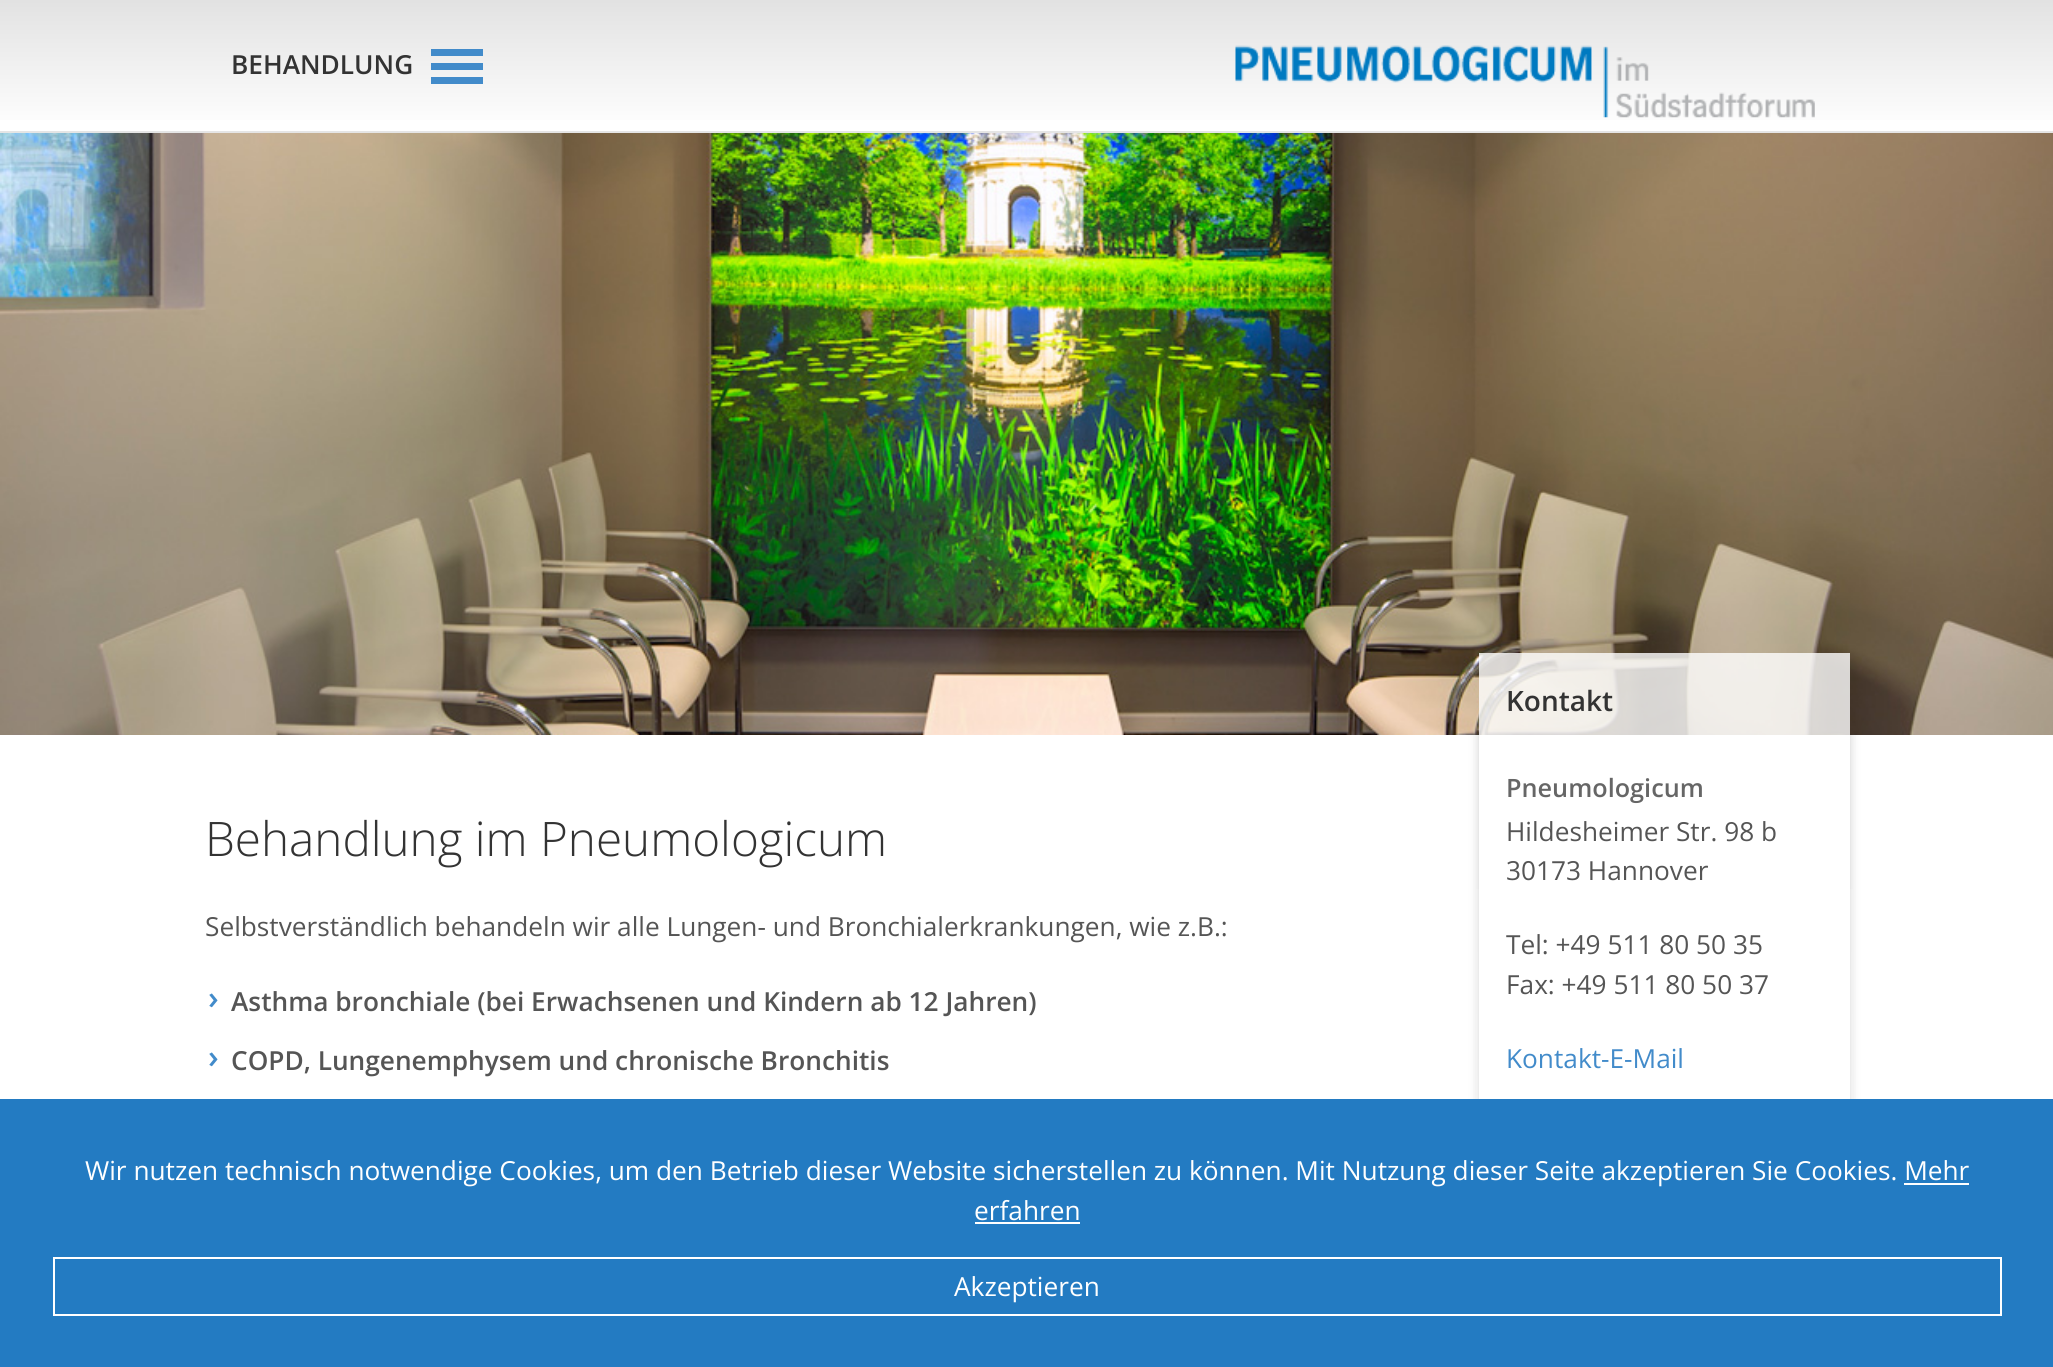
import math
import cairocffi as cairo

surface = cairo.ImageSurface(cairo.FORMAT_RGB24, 2053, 1367)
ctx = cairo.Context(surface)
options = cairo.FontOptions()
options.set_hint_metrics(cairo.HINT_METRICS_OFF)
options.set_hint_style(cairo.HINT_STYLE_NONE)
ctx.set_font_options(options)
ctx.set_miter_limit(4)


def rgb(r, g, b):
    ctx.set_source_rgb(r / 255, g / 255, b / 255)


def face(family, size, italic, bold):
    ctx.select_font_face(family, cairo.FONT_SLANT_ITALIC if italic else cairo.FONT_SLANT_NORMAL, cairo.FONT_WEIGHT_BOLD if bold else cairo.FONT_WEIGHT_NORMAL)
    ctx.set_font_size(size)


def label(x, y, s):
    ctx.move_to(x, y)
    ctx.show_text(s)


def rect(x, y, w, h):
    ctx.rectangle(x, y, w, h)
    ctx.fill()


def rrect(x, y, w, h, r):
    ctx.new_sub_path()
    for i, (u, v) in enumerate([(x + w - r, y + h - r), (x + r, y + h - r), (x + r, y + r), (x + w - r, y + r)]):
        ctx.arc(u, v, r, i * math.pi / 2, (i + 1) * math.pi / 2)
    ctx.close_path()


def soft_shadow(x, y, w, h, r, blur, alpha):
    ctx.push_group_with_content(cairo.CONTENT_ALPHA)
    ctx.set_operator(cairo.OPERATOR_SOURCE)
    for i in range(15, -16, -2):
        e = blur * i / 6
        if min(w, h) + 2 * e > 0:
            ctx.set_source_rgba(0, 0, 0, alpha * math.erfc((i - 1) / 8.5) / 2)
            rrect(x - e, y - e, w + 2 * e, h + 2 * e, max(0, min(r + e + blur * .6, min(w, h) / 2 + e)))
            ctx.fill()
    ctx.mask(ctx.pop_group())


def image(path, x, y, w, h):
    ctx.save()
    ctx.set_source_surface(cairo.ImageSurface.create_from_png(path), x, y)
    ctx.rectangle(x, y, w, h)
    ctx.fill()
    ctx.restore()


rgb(255, 255, 255)
ctx.paint()
gradient = cairo.LinearGradient(1027, 0, 1027, 131)
gradient.add_color_stop_rgba(0, 0.886, 0.886, 0.886, 1)
gradient.add_color_stop_rgba(1, 1, 1, 1, 1)
ctx.set_source(gradient)
rect(0, 0, 2053, 120)
rgb(229, 229, 229)
rect(0, 131, 2053, 2)
face('Open Sans SemiBold', 26.25, 0, 0)
rgb(51, 51, 51)
label(231, 74, 'BEHANDLUNG')
rgb(66, 139, 202)
rect(431, 49, 52, 7)
rect(431, 63, 52, 7)
rect(431, 77, 52, 7)
image('image0.png', 1235, 45, 580, 73)
ctx.save()
ctx.set_fill_rule(cairo.FILL_RULE_EVEN_ODD)
ctx.new_path()
ctx.move_to(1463, 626)
ctx.line_to(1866, 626)
ctx.line_to(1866, 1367)
ctx.line_to(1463, 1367)
ctx.close_path()
ctx.move_to(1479, 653)
ctx.line_to(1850, 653)
ctx.line_to(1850, 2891)
ctx.line_to(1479, 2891)
ctx.close_path()
ctx.clip()
rgb(0, 0, 0)
soft_shadow(1479, 642, 371, 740, 0, 5, 0.2)
ctx.restore()
image('image1.png', 0, 133, 2053, 602)
face('Open Sans Light', 47.6, 0, 0)
rgb(51, 51, 51)
label(205, 856, 'Behandlung im Pneumologicum')
face('Open Sans', 26.25, 0, 0)
rgb(85, 85, 85)
label(205, 936, 'Selbstverständlich behandeln wir alle Lungen- und Bronchialerkrankungen, wie z.B.:')
face('Open Sans SemiBold', 32, 0, 0)
rgb(66, 139, 202)
label(208, 1009, '›')
face('Open Sans SemiBold', 26.25, 0, 0)
rgb(85, 85, 85)
label(231, 1011, 'Asthma bronchiale (bei Erwachsenen und Kindern ab 12 Jahren)')
face('Open Sans SemiBold', 32, 0, 0)
rgb(66, 139, 202)
label(208, 1068, '›')
face('Open Sans SemiBold', 26.25, 0, 0)
rgb(85, 85, 85)
label(231, 1070, 'COPD, Lungenemphysem und chronische Bronchitis')
gradient = cairo.LinearGradient(1664, 635, 1664, 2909)
gradient.add_color_stop_rgba(0, 1, 1, 1, 0)
gradient.add_color_stop_rgba(1, 1, 1, 1, 1)
ctx.set_source(gradient)
rect(1476, 889, 377, 210)
ctx.set_source_rgba(1, 1, 1, 0.8)
rect(1479, 653, 371, 446)
face('Open Sans SemiBold', 28, 0, 0)
rgb(51, 51, 51)
label(1506, 711, 'Kontakt')
face('Open Sans SemiBold', 25.25, 0, 0)
rgb(102, 102, 102)
label(1506, 797, 'Pneumologicum')
face('Open Sans', 26.25, 0, 0)
rgb(85, 85, 85)
label(1506, 841, 'Hildesheimer Str. 98 b')
label(1506, 880, '30173 Hannover')
label(1506, 954, 'Tel: +49 511 80 50 35')
label(1506, 994, 'Fax: +49 511 80 50 37')
rgb(66, 139, 202)
label(1506, 1068, 'Kontakt-E-Mail')
rgb(35, 123, 194)
rect(0, 1099, 2053, 268)
rgb(255, 255, 255)
label(85, 1180, 'Wir nutzen technisch notwendige Cookies, um den Betrieb dieser Website sicherstellen zu können. Mit Nutzung dieser Seite akzeptieren Sie Cookies. Mehr')
label(974, 1220, 'erfahren')
rect(1904, 1183, 65, 2)
rect(975, 1222, 105, 2)
ctx.rectangle(54, 1258, 1947, 57)
ctx.stroke()
label(954, 1296, 'Akzeptieren')
surface.write_to_png('render.png')
